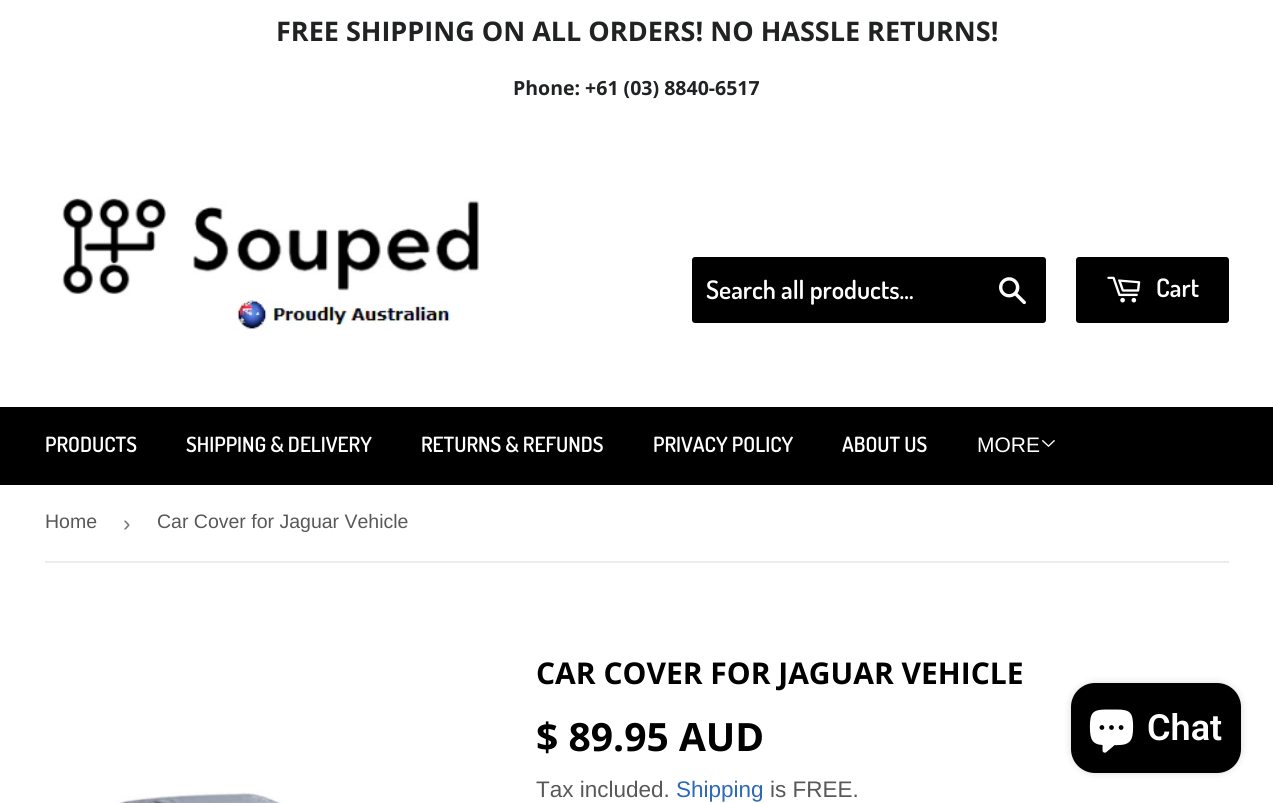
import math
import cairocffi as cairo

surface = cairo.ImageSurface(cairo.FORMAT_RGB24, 1273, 803)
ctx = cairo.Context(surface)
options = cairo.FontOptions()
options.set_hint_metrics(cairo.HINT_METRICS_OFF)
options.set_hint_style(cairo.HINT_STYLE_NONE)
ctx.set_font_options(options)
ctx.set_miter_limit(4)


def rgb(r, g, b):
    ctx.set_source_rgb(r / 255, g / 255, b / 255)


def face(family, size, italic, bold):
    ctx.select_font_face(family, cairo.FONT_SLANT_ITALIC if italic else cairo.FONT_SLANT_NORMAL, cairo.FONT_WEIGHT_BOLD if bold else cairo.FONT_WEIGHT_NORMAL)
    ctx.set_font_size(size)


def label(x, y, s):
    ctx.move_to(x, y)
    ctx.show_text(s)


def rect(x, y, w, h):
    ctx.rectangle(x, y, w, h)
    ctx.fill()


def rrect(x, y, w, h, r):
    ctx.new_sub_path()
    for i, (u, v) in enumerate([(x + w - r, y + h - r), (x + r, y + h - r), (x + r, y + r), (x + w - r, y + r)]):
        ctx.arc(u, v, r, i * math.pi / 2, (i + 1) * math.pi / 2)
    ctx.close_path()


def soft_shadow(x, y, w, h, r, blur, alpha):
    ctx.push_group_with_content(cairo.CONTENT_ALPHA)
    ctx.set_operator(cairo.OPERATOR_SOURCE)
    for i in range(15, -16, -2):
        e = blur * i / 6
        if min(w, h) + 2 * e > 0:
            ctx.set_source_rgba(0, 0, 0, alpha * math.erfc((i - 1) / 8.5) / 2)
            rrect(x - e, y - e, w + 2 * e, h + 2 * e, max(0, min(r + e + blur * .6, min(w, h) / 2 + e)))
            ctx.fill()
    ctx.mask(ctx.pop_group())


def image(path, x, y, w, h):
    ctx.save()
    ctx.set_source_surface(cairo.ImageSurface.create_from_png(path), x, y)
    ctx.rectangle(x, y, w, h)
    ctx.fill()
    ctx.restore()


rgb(255, 255, 255)
ctx.paint()
face('Open Sans', 27, 0, 1)
rgb(32, 34, 35)
label(276, 41, 'FREE SHIPPING ON ALL ORDERS! NO HASSLE RETURNS!')
face('Open Sans', 19.5, 0, 1)
label(513, 95, 'Phone: +61 (03) 8840-6517')
image('image0.png', 62, 198, 417, 133)
rgb(0, 0, 0)
rrect(692, 257, 354, 66, 3)
ctx.fill()
face('Dosis SemiBold', 25.5, 0, 0)
rgb(255, 255, 255)
label(706, 299, 'Search all products...')
image('image1.png', 999, 277, 27, 28)
rgb(0, 0, 0)
rrect(1076, 257, 153, 66, 3)
ctx.fill()
image('image2.png', 1107, 276, 34, 27)
rgb(255, 255, 255)
label(1156, 297, 'Cart')
rgb(0, 0, 0)
rect(0, 407, 1273, 78)
face('Dosis SemiBold', 21, 0, 0)
rgb(255, 255, 255)
label(45, 452, 'PRODUCTS')
label(186, 452, 'SHIPPING & DELIVERY')
label(421, 452, 'RETURNS & REFUNDS')
label(653, 452, 'PRIVACY POLICY')
label(842, 452, 'ABOUT US')
face('Liberation Sans', 21, 0, 0)
label(977, 452, 'MORE')
image('image3.png', 1042, 440, 13, 7)
rgb(236, 236, 236)
rect(45, 561, 1184, 2)
face('Liberation Sans', 19.5, 0, 0)
rgb(88, 88, 88)
label(45, 528, 'Home')
face('Liberation Sans', 22.5, 0, 0)
rgb(118, 118, 118)
label(123, 531, '›')
face('Liberation Sans', 19.5, 0, 0)
rgb(88, 88, 88)
label(157, 528, 'Car Cover for Jaguar Vehicle')
image('image4.png', 116, 792, 168, 11)
face('Open Sans', 30, 0, 1)
rgb(0, 0, 0)
label(536, 684, 'CAR COVER FOR JAGUAR VEHICLE')
face('Open Sans', 39, 0, 1)
label(536, 751, '$ 89.95 AUD')
face('Liberation Sans', 22.5, 0, 0)
rgb(88, 88, 88)
label(536, 797, 'Tax included.')
rgb(44, 105, 184)
label(676, 797, 'Shipping')
rgb(88, 88, 88)
label(770, 797, 'is FREE.')
rgb(0, 0, 0)
soft_shadow(1071, 683, 170, 90, 24, 4, 0.15)
rgb(0, 0, 0)
rrect(1071, 683, 170, 90, 24)
ctx.fill()
image('image5.png', 1089, 709, 45, 44)
face('Roboto SemiBold', 36, 0, 0)
rgb(255, 255, 255)
label(1147, 740, 'Chat')
surface.write_to_png('render.png')
